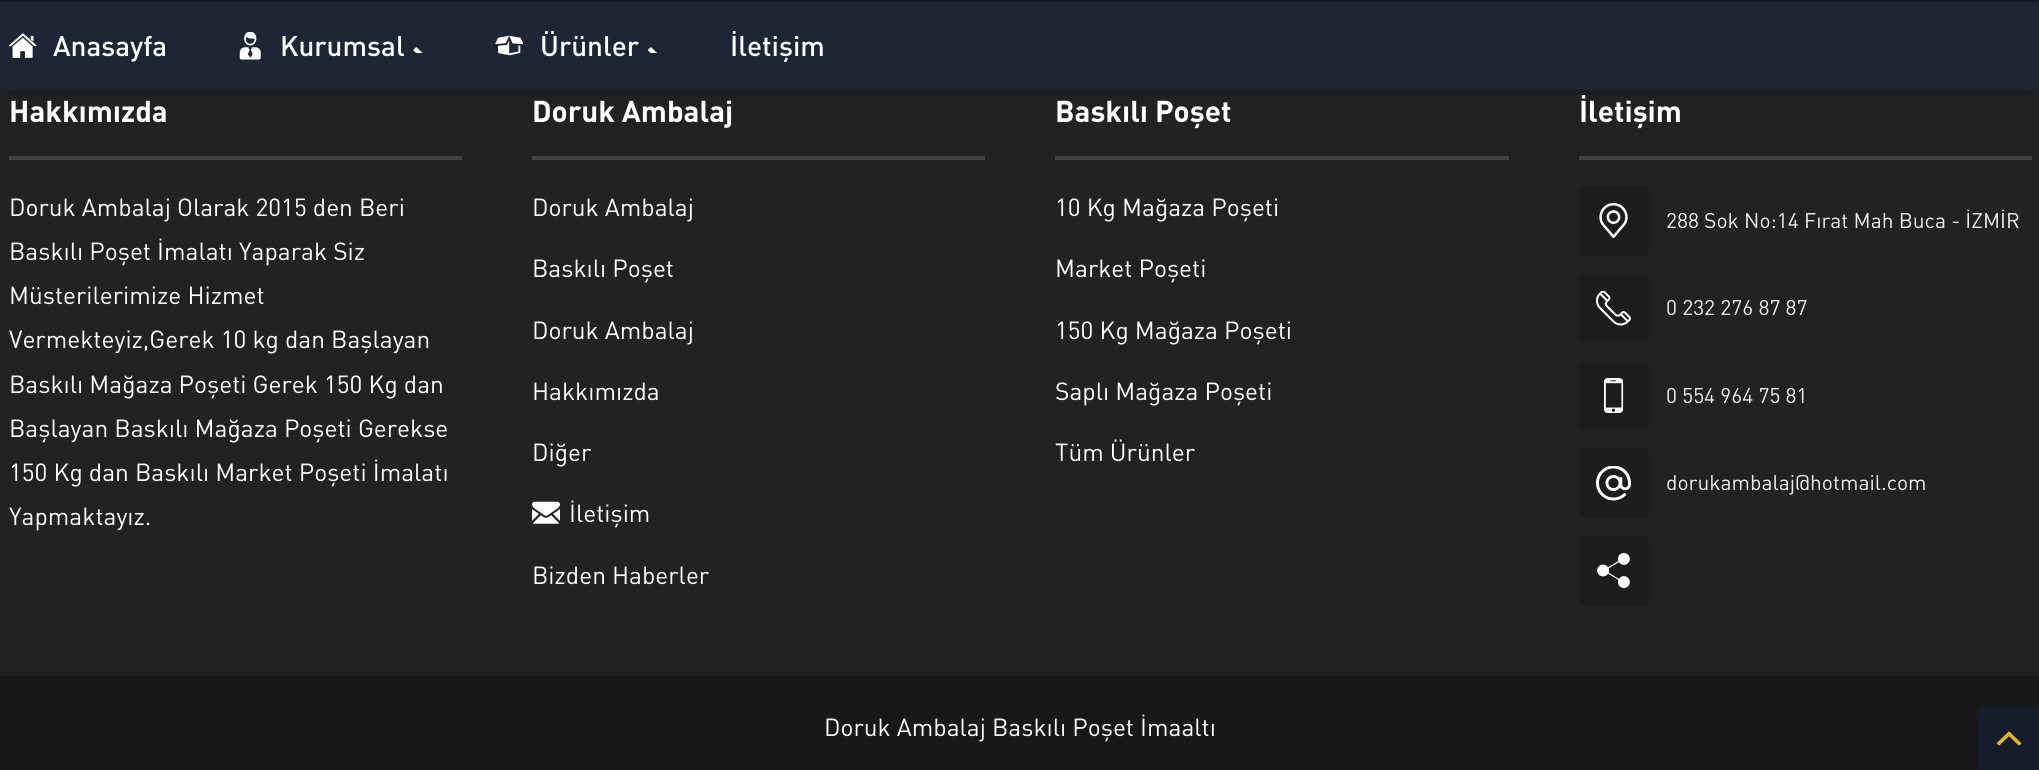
import math
import cairocffi as cairo

surface = cairo.ImageSurface(cairo.FORMAT_RGB24, 2039, 770)
ctx = cairo.Context(surface)
options = cairo.FontOptions()
options.set_hint_metrics(cairo.HINT_METRICS_OFF)
options.set_hint_style(cairo.HINT_STYLE_NONE)
ctx.set_font_options(options)
ctx.set_miter_limit(4)


def rgb(r, g, b):
    ctx.set_source_rgb(r / 255, g / 255, b / 255)


def face(family, size, italic, bold):
    ctx.select_font_face(family, cairo.FONT_SLANT_ITALIC if italic else cairo.FONT_SLANT_NORMAL, cairo.FONT_WEIGHT_BOLD if bold else cairo.FONT_WEIGHT_NORMAL)
    ctx.set_font_size(size)


def label(x, y, s):
    ctx.move_to(x, y)
    ctx.show_text(s)


def rect(x, y, w, h):
    ctx.rectangle(x, y, w, h)
    ctx.fill()


def rrect(x, y, w, h, r):
    ctx.new_sub_path()
    for i, (u, v) in enumerate([(x + w - r, y + h - r), (x + r, y + h - r), (x + r, y + r), (x + w - r, y + r)]):
        ctx.arc(u, v, r, i * math.pi / 2, (i + 1) * math.pi / 2)
    ctx.close_path()


def soft_shadow(x, y, w, h, r, blur, alpha):
    ctx.push_group_with_content(cairo.CONTENT_ALPHA)
    ctx.set_operator(cairo.OPERATOR_SOURCE)
    for i in range(15, -16, -2):
        e = blur * i / 6
        if min(w, h) + 2 * e > 0:
            ctx.set_source_rgba(0, 0, 0, alpha * math.erfc((i - 1) / 8.5) / 2)
            rrect(x - e, y - e, w + 2 * e, h + 2 * e, max(0, min(r + e + blur * .6, min(w, h) / 2 + e)))
            ctx.fill()
    ctx.mask(ctx.pop_group())


def image(path, x, y, w, h):
    ctx.save()
    ctx.set_source_surface(cairo.ImageSurface.create_from_png(path), x, y)
    ctx.rectangle(x, y, w, h)
    ctx.fill()
    ctx.restore()


rgb(34, 34, 34)
ctx.paint()
rgb(0, 0, 0)
soft_shadow(9, 26, 2023, 72, 0, 4.5, 0.1)
rgb(21, 26, 43)
rect(0, 0, 2039, 2)
rgb(32, 37, 54)
rect(0, 2, 2039, 87)
image('image0.png', 9, 33, 28, 25)
face('DIN Medium', 28, 0, 0)
rgb(255, 255, 255)
label(53, 56, 'Anasayfa')
image('image1.png', 239, 32, 22, 28)
label(280, 56, 'Kurumsal')
image('image2.png', 413, 47, 10, 6)
image('image3.png', 495, 35, 28, 21)
label(540, 56, 'Ürünler')
image('image4.png', 648, 47, 9, 6)
label(730, 56, 'İletişim')
rgb(67, 67, 67)
rect(9, 156, 453, 4)
face('DIN', 29.75, 0, 1)
rgb(255, 255, 255)
label(9, 122, 'Hakkımızda')
face('DIN', 24.5, 0, 0)
label(9, 216, 'Doruk Ambalaj Olarak 2015 den Beri')
label(9, 260, 'Baskılı Poşet İmalatı Yaparak Siz')
label(9, 304, 'Müsterilerimize Hizmet')
label(9, 348, 'Vermekteyiz,Gerek 10 kg dan Başlayan')
label(9, 393, 'Baskılı Mağaza Poşeti Gerek 150 Kg dan')
label(9, 437, 'Başlayan Baskılı Mağaza Poşeti Gerekse')
label(9, 481, '150 Kg dan Baskılı Market Poşeti İmalatı')
label(9, 525, 'Yapmaktayız.')
rgb(67, 67, 67)
rect(532, 156, 453, 4)
face('DIN', 29.75, 0, 1)
rgb(255, 255, 255)
label(532, 122, 'Doruk Ambalaj')
face('DIN', 24.5, 0, 0)
label(532, 216, 'Doruk Ambalaj')
label(532, 277, 'Baskılı Poşet')
label(532, 339, 'Doruk Ambalaj')
label(532, 400, 'Hakkımızda')
label(532, 461, 'Diğer')
image('image5.png', 532, 501, 28, 23)
label(569, 522, 'İletişim')
label(532, 584, 'Bizden Haberler')
rgb(67, 67, 67)
rect(1055, 156, 454, 4)
face('DIN', 29.75, 0, 1)
rgb(255, 255, 255)
label(1055, 122, 'Baskılı Poşet')
face('DIN', 24.5, 0, 0)
label(1055, 216, '10 Kg Mağaza Poşeti')
label(1055, 277, 'Market Poşeti')
label(1055, 339, '150 Kg Mağaza Poşeti')
label(1055, 400, 'Saplı Mağaza Poşeti')
label(1055, 461, 'Tüm Ürünler')
rgb(67, 67, 67)
rect(1579, 156, 453, 4)
face('DIN', 29.75, 0, 1)
rgb(255, 255, 255)
label(1579, 122, 'İletişim')
rgb(29, 29, 29)
rrect(1579, 186, 70, 70, 5)
ctx.fill()
image('image6.png', 1599, 203, 29, 35)
face('DIN', 21, 0, 0)
rgb(238, 238, 238)
label(1666, 228, '288 Sok No:14 Fırat Mah Buca - İZMİR')
rgb(29, 29, 29)
rrect(1579, 273, 70, 70, 5)
ctx.fill()
image('image7.png', 1596, 291, 35, 35)
rgb(238, 238, 238)
label(1666, 315, '0 232 276 87 87')
rgb(29, 29, 29)
rrect(1579, 361, 70, 70, 5)
ctx.fill()
image('image8.png', 1603, 378, 21, 35)
rgb(238, 238, 238)
label(1666, 403, '0 554 964 75 81')
rgb(29, 29, 29)
rrect(1579, 448, 70, 70, 5)
ctx.fill()
image('image9.png', 1596, 466, 35, 35)
rgb(238, 238, 238)
label(1666, 490, 'dorukambalaj@hotmail.com')
rgb(29, 29, 29)
rrect(1579, 536, 70, 70, 5)
ctx.fill()
image('image10.png', 1597, 553, 33, 35)
rgb(24, 24, 24)
rect(0, 676, 2039, 94)
face('DIN', 24.5, 0, 0)
rgb(255, 255, 255)
label(824, 736, 'Doruk Ambalaj Baskılı Poşet İmaaltı')
rgb(23, 28, 44)
ctx.new_path()
ctx.move_to(1985, 707)
ctx.line_to(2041, 707)
ctx.line_to(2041, 770)
ctx.line_to(1978, 770)
ctx.line_to(1978, 714)
ctx.curve_to(1978, 710, 1981, 707, 1985, 707)
ctx.close_path()
ctx.fill()
image('image11.png', 1996, 731, 26, 15)
surface.write_to_png('render.png')
